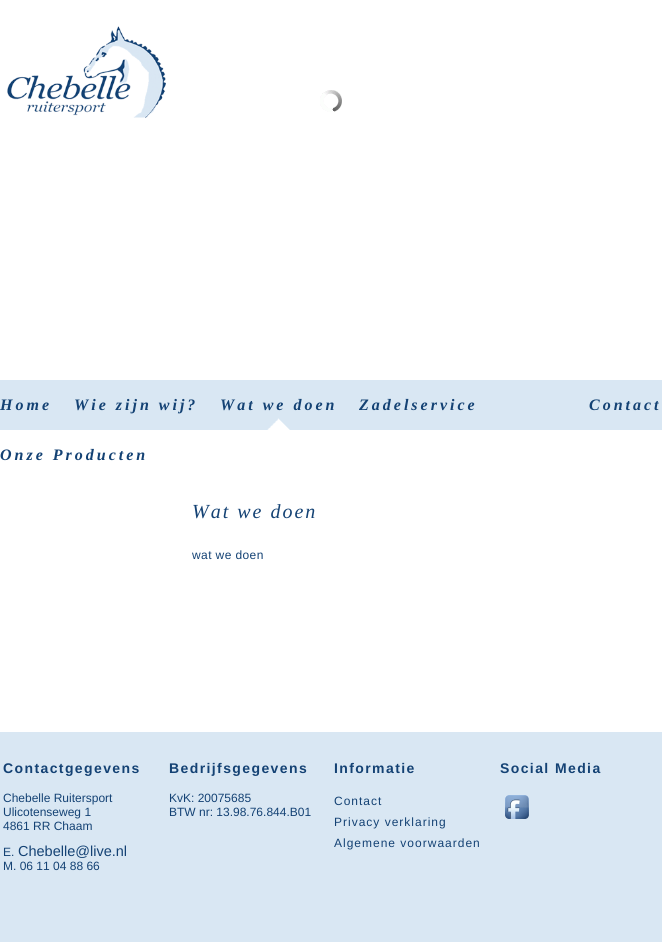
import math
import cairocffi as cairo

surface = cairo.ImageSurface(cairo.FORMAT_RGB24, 662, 942)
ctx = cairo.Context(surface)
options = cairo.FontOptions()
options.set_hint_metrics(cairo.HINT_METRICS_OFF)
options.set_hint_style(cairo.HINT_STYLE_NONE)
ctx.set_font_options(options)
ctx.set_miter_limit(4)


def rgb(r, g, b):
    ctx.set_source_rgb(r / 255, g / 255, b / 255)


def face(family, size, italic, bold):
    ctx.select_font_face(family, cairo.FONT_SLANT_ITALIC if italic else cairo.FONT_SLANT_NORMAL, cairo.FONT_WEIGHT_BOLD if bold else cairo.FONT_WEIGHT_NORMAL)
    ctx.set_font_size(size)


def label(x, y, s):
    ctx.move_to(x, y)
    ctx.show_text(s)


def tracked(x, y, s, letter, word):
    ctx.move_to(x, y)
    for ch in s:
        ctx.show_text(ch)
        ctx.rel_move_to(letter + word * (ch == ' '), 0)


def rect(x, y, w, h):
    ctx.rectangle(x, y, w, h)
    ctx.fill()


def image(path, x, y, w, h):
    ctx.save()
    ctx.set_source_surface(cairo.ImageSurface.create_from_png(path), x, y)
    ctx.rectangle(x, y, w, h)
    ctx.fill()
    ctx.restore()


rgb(255, 255, 255)
ctx.paint()
image('image0.png', 7, 26, 159, 92)
image('image1.png', 320, 90, 22, 22)
rgb(217, 231, 243)
rect(0, 380, 662, 50)
face('Liberation Serif', 16, 1, 1)
rgb(20, 66, 116)
tracked(0, 410, 'Home', 3, 0)
tracked(74, 410, 'Wie zijn wij?', 3, 0)
image('image2.png', 267, 418, 23, 12)
tracked(220, 410, 'Wat we doen', 3, 0)
tracked(359, 410, 'Zadelservice', 3, 0)
tracked(0, 460, 'Onze Producten', 3, 0)
tracked(589, 410, 'Contact', 3, 0)
face('Liberation Serif', 20, 1, 0)
tracked(192, 518, 'Wat we doen', 2, 0)
face('Liberation Sans', 12, 0, 0)
tracked(192, 559, 'wat we doen', 0.4, 0)
rgb(217, 231, 243)
rect(0, 732, 662, 210)
face('Liberation Sans', 14, 0, 1)
rgb(20, 66, 116)
tracked(3, 773, 'Contactgegevens', 1.4, 0)
face('Liberation Sans', 12, 0, 0)
label(3, 802, 'Chebelle Ruitersport')
label(3, 816, 'Ulicotenseweg 1')
label(3, 830, '4861 RR Chaam')
label(3, 856, 'E.')
face('Liberation Sans', 14.5, 0, 0)
label(18, 856, 'Chebelle@live.nl')
face('Liberation Sans', 12, 0, 0)
label(3, 870, 'M. 06 11 04 88 66')
face('Liberation Sans', 14, 0, 1)
tracked(169, 773, 'Bedrijfsgegevens', 1.4, 0)
face('Liberation Sans', 12, 0, 0)
label(169, 802, 'KvK: 20075685')
label(169, 816, 'BTW nr: 13.98.76.844.B01')
face('Liberation Sans', 14, 0, 1)
tracked(334, 773, 'Informatie', 1.4, 0)
face('Liberation Sans', 12, 0, 0)
tracked(334, 805, 'Contact', 1, 0)
tracked(334, 826, 'Privacy verklaring', 1, 0)
tracked(334, 847, 'Algemene voorwaarden', 1, 0)
face('Liberation Sans', 14, 0, 1)
tracked(500, 773, 'Social Media', 1.4, 0)
image('image3.png', 505, 795, 24, 24)
surface.write_to_png('render.png')
